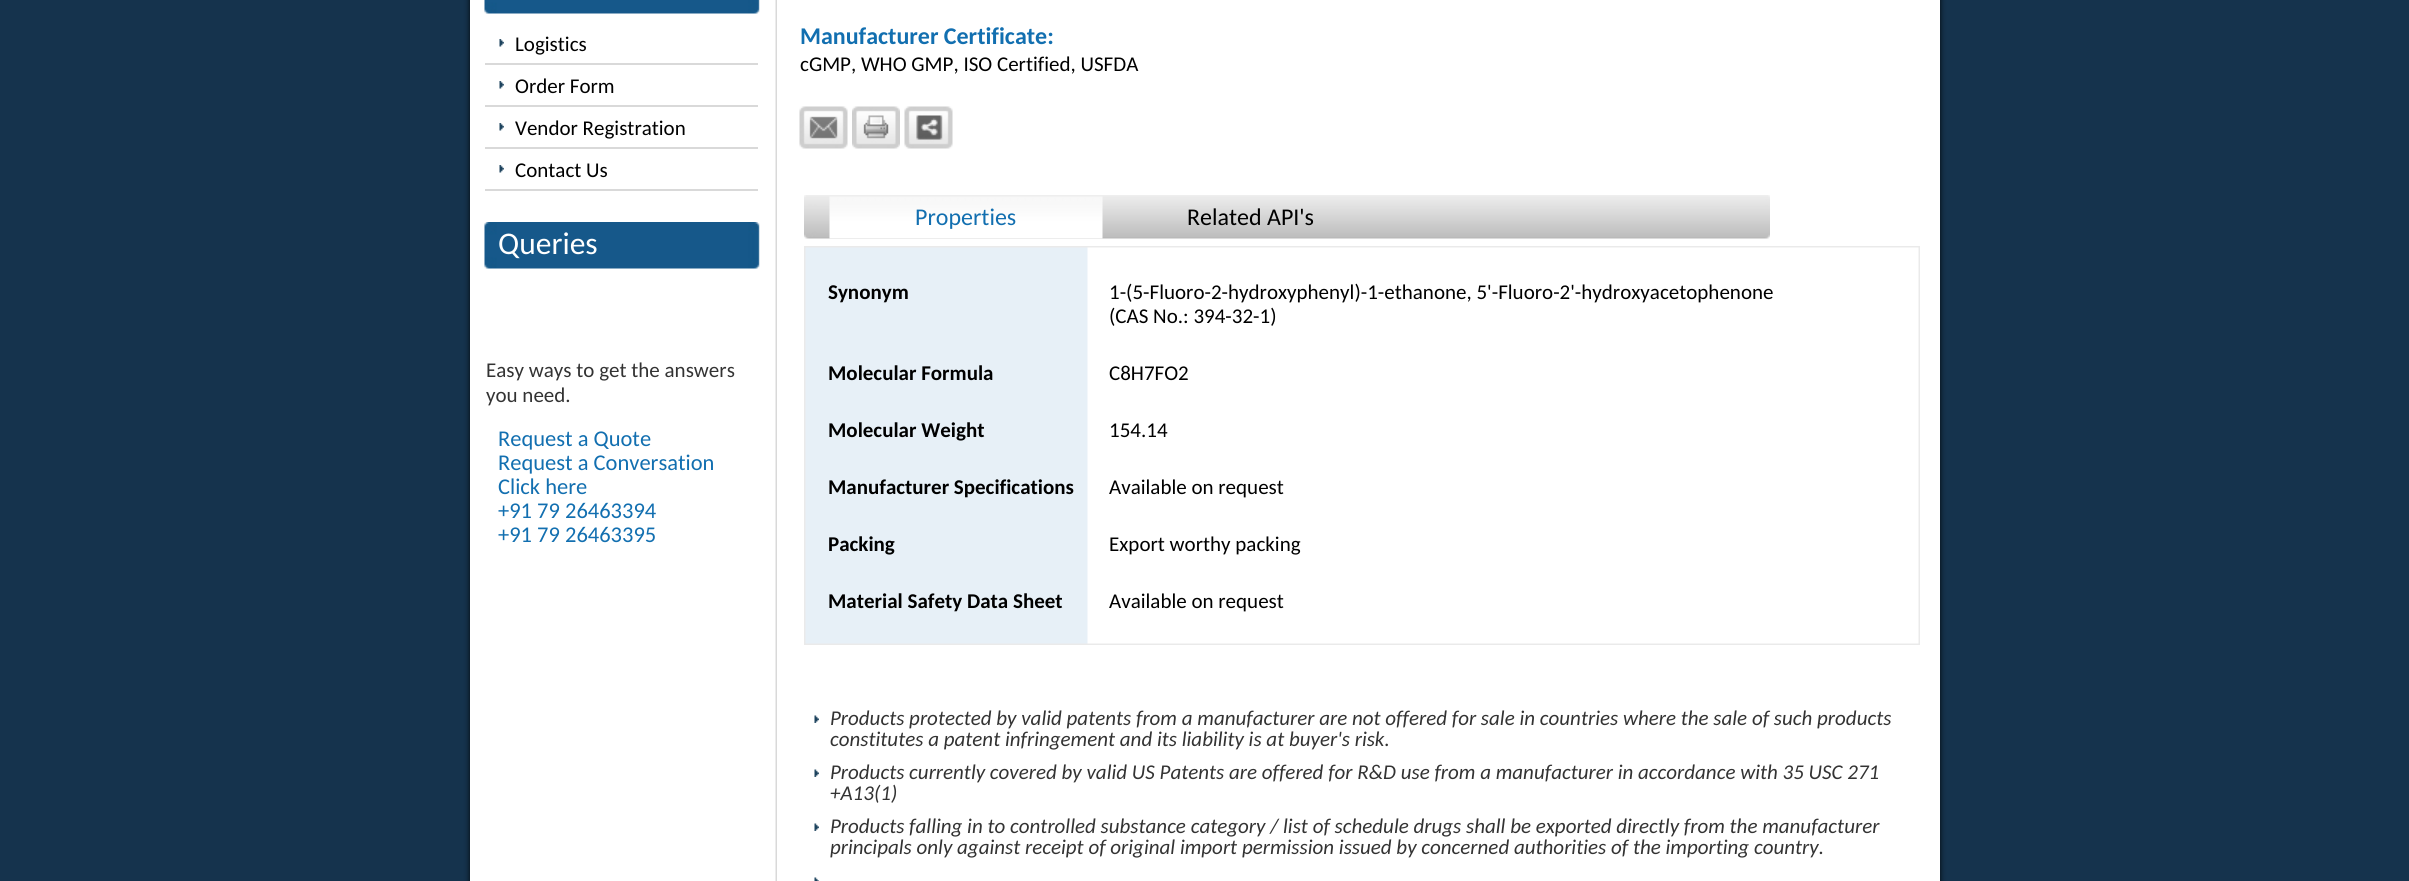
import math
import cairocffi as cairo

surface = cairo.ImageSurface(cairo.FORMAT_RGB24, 2409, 881)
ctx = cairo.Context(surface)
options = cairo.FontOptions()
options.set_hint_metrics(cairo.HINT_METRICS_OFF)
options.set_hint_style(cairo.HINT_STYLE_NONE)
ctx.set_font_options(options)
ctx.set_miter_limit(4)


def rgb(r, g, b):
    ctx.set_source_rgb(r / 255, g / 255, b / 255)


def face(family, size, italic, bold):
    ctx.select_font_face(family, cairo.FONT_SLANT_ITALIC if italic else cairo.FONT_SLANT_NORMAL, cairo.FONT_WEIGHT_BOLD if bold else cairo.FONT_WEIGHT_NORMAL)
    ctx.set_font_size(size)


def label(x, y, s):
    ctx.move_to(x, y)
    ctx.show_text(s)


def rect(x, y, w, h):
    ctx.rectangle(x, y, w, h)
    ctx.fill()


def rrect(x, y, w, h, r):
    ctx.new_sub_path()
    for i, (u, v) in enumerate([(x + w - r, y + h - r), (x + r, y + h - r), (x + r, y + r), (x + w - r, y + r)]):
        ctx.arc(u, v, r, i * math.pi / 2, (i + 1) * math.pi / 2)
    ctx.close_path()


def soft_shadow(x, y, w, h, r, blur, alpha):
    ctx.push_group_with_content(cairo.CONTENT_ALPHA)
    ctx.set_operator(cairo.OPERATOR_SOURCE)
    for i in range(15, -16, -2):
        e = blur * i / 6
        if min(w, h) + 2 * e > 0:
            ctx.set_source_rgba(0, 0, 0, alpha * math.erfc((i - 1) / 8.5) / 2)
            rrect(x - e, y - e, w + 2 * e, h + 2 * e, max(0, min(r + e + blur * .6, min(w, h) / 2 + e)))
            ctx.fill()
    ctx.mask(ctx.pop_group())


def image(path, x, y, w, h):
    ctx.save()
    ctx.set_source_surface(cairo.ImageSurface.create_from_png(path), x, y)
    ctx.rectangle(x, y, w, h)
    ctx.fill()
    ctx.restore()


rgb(21, 51, 77)
ctx.paint()
rgb(0, 0, 0)
soft_shadow(470, -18, 1470, 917, 9, 3, 0.9)
rgb(255, 255, 255)
rect(470, 0, 1470, 881)
image('image0.png', 775, 0, 2, 881)
image('image1.png', 484, 0, 276, 14)
image('image2.png', 499, 39, 5, 8)
rgb(217, 217, 217)
rect(485, 63, 273, 2)
face('Carlito', 21, 0, 0)
rgb(0, 0, 0)
label(515, 51, 'Logistics')
image('image2.png', 499, 81, 5, 8)
rgb(217, 217, 217)
rect(485, 105, 273, 2)
rgb(0, 0, 0)
label(515, 93, 'Order Form')
image('image2.png', 499, 123, 5, 8)
rgb(217, 217, 217)
rect(485, 147, 273, 2)
rgb(0, 0, 0)
label(515, 135, 'Vendor Registration')
image('image2.png', 499, 165, 5, 8)
rgb(217, 217, 217)
rect(485, 189, 273, 2)
rgb(0, 0, 0)
label(515, 177, 'Contact Us')
image('image3.png', 484, 222, 276, 47)
face('Carlito', 31.5, 0, 0)
rgb(255, 255, 255)
label(498, 254, 'Queries')
face('Carlito', 21, 0, 0)
rgb(51, 51, 51)
label(486, 377, 'Easy ways to get the answers')
label(486, 402, 'you need.')
face('Carlito', 22.5, 0, 0)
rgb(18, 111, 176)
label(498, 446, 'Request a Quote')
label(498, 470, 'Request a Conversation')
label(498, 494, 'Click here')
label(498, 518, '+91 79 26463394')
label(498, 542, '+91 79 26463395')
face('Carlito', 24, 0, 1)
label(800, 44, 'Manufacturer Certificate:')
face('Carlito', 21, 0, 0)
rgb(0, 0, 0)
label(800, 71, 'cGMP, WHO GMP, ISO Certified, USFDA')
image('image4.png', 799, 106, 49, 43)
image('image5.png', 852, 106, 48, 43)
image('image6.png', 904, 106, 49, 43)
image('image7.png', 804, 195, 966, 44)
image('image8.png', 829, 196, 274, 43)
face('Carlito', 24, 0, 0)
rgb(18, 111, 176)
label(915, 225, 'Properties')
rgb(0, 0, 0)
label(1187, 225, 'Related API\'s')
ctx.rectangle(805, 247, 1114, 397)
rgb(234, 234, 234)
ctx.stroke()
image('image9.png', 805, 247, 1114, 397)
face('Carlito', 21, 0, 1)
rgb(0, 0, 0)
label(828, 299, 'Synonym')
face('Carlito', 21, 0, 0)
label(1109, 299, '1-(5-Fluoro-2-hydroxyphenyl)-1-ethanone, 5\'-Fluoro-2\'-hydroxyacetophenone')
label(1109, 323, '(CAS No.: 394-32-1)')
face('Carlito', 21, 0, 1)
label(828, 380, 'Molecular Formula')
face('Carlito', 21, 0, 0)
label(1109, 380, 'C8H7FO2')
face('Carlito', 21, 0, 1)
label(828, 437, 'Molecular Weight')
face('Carlito', 21, 0, 0)
label(1109, 437, '154.14')
face('Carlito', 21, 0, 1)
label(828, 494, 'Manufacturer Specifications')
face('Carlito', 21, 0, 0)
label(1109, 494, 'Available on request')
face('Carlito', 21, 0, 1)
label(828, 551, 'Packing')
face('Carlito', 21, 0, 0)
label(1109, 551, 'Export worthy packing')
face('Carlito', 21, 0, 1)
label(828, 608, 'Material Safety Data Sheet')
face('Carlito', 21, 0, 0)
label(1109, 608, 'Available on request')
image('image10.png', 814, 715, 5, 8)
face('Carlito', 21, 1, 0)
rgb(51, 51, 51)
label(830, 725, 'Products protected by valid patents from a manufacturer are not offered for sale in countries where the sale of such products')
label(830, 746, 'constitutes a patent infringement and its liability is at buyer\'s risk.')
image('image10.png', 814, 769, 5, 8)
label(830, 779, 'Products currently covered by valid US Patents are offered for R&D use from a manufacturer in accordance with 35 USC 271')
label(830, 800, '+A13(1)')
image('image10.png', 814, 823, 5, 8)
label(830, 833, 'Products falling in to controlled substance category / list of schedule drugs shall be exported directly from the manufacturer')
label(830, 854, 'principals only against receipt of original import permission issued by concerned authorities of the importing country.')
image('image11.png', 814, 877, 5, 4)
surface.write_to_png('render.png')
